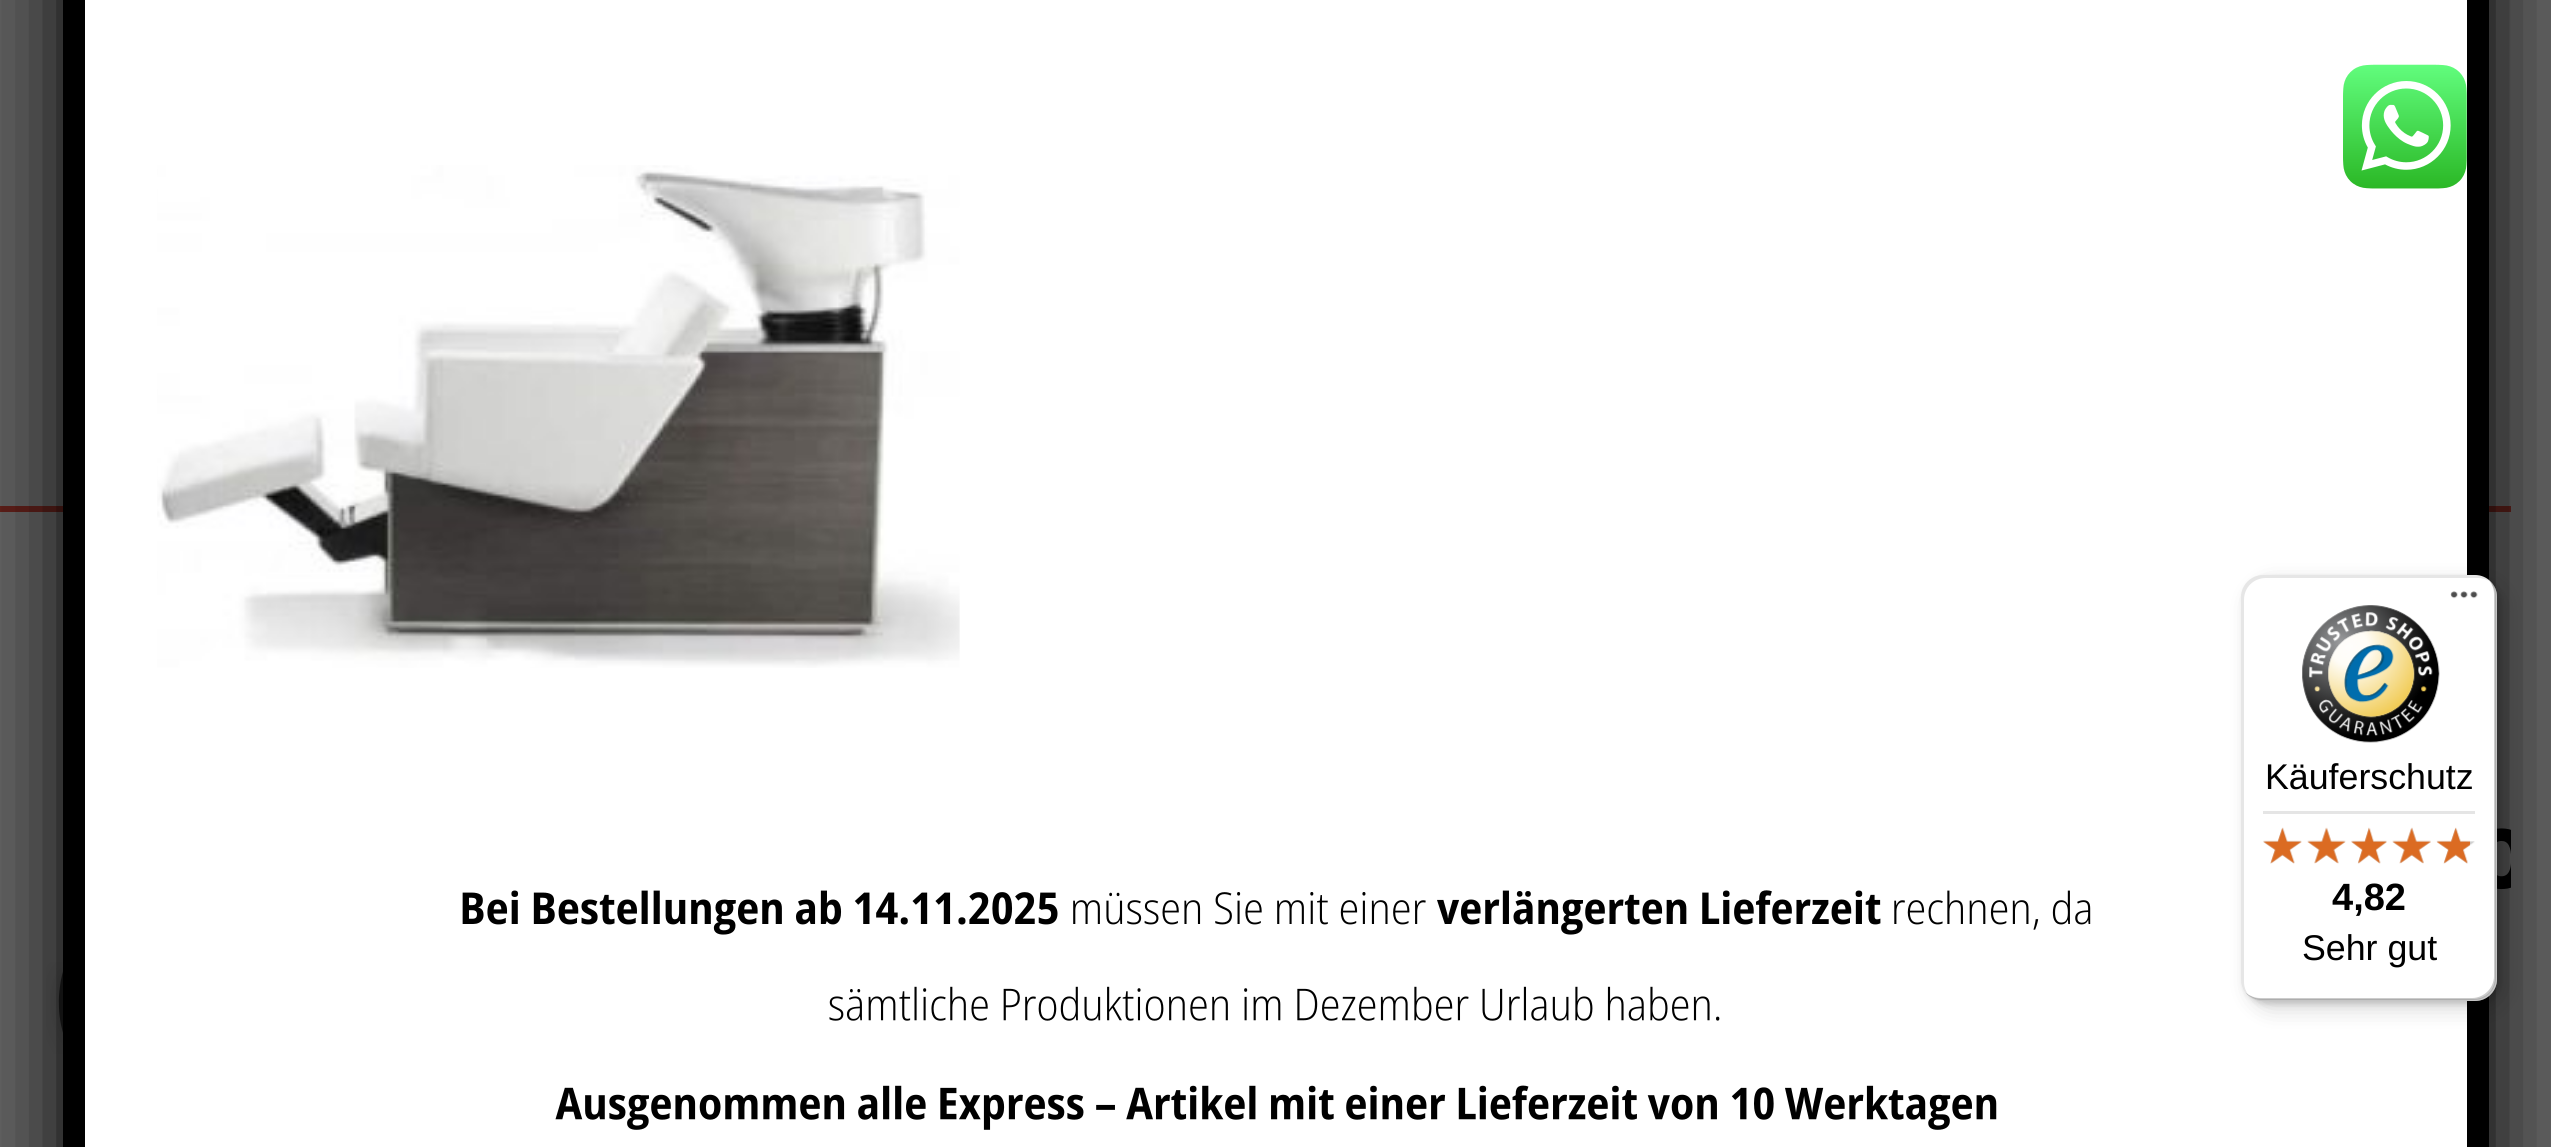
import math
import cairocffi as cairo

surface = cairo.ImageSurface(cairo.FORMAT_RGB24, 2551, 1147)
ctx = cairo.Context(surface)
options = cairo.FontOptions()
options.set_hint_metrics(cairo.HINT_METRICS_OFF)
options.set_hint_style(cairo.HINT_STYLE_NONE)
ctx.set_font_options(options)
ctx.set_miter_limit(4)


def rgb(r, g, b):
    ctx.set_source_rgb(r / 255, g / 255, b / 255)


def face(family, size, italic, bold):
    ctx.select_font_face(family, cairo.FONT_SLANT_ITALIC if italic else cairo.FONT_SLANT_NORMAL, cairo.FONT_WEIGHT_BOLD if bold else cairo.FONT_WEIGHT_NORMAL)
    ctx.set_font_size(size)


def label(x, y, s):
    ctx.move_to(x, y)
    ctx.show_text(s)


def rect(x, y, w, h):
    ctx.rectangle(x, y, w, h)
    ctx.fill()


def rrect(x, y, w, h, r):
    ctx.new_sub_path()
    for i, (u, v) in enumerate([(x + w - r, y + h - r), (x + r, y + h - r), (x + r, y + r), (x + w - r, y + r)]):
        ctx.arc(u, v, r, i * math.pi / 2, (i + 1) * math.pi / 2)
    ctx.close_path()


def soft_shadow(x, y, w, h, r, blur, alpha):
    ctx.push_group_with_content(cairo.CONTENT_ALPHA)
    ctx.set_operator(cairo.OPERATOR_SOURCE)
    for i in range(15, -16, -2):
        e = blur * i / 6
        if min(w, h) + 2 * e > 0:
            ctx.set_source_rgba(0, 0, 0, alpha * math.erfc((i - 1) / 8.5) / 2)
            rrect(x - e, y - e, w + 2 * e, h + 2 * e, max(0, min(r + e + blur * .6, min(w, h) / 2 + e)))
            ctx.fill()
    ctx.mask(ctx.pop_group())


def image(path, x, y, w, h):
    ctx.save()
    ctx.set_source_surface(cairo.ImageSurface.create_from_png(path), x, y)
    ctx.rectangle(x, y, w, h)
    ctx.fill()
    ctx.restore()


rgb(99, 99, 99)
ctx.paint()
rgb(96, 96, 96)
rect(0, 0, 2511, 506)
rgb(95, 31, 25)
rect(0, 506, 2511, 6)
image('image0.png', 2497, 828, 14, 62)
image('image8.png', 46, 962, 17, 92)
rgb(2, 2, 2)
soft_shadow(63, -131, 2426, 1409, 8, 41, 1)
rgb(255, 255, 255)
rect(85, 0, 2382, 1147)
ctx.new_path()
ctx.move_to(74, -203.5)
ctx.line_to(2478, -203.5)
ctx.line_to(2478, 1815)
ctx.line_to(74, 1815)
ctx.close_path()
rgb(0, 0, 0)
ctx.set_line_width(22)
ctx.stroke()
image('image1.png', 157, 165, 803, 503)
image('image2.png', 462, 890, 596, 45)
image('image3.png', 1073, 892, 353, 33)
image('image4.png', 1437, 890, 444, 45)
image('image5.png', 1894, 890, 197, 40)
image('image6.png', 829, 986, 891, 35)
image('image7.png', 555, 1085, 1442, 45)
image('image9.png', 2343, 64, 124, 125)
rgb(0, 0, 0)
soft_shadow(2250, 583, 255, 426, 22, 11, 0.15)
soft_shadow(2244, 578, 256, 426, 22, 3, 0.15)
rgb(255, 255, 255)
rrect(2241, 575, 256, 426, 22)
ctx.fill()
ctx.set_source_rgba(0, 0, 0, 0.1)
ctx.new_path()
ctx.move_to(2266, 578)
ctx.line_to(2478, 578)
ctx.curve_to(2483, 578, 2488, 580, 2491, 582)
ctx.curve_to(2487, 578, 2482, 575, 2475, 575)
ctx.line_to(2263, 575)
ctx.curve_to(2251, 575, 2241, 585, 2241, 597)
ctx.line_to(2241, 979)
ctx.curve_to(2241, 986, 2244, 992, 2249, 996)
ctx.curve_to(2246, 992, 2244, 987, 2244, 982)
ctx.line_to(2244, 600)
ctx.curve_to(2244, 587, 2254, 578, 2266, 578)
ctx.close_path()
ctx.fill()
ctx.set_source_rgba(0, 0, 0, 0.2)
ctx.new_path()
ctx.move_to(2246, 993)
ctx.curve_to(2250, 998, 2256, 1001, 2263, 1001)
ctx.line_to(2475, 1001)
ctx.curve_to(2487, 1001, 2497, 991, 2497, 979)
ctx.line_to(2497, 597)
ctx.curve_to(2497, 590, 2494, 584, 2489, 580)
ctx.curve_to(2492, 584, 2494, 589, 2494, 594)
ctx.line_to(2494, 976)
ctx.curve_to(2494, 988, 2484, 998, 2472, 998)
ctx.line_to(2260, 998)
ctx.curve_to(2255, 998, 2250, 996, 2246, 993)
ctx.close_path()
ctx.fill()
ctx.set_source_rgba(0.196, 0.196, 0.196, 0.2)
ctx.new_path()
ctx.move_to(2245, 992)
ctx.curve_to(2249, 997, 2256, 1001, 2263, 1001)
ctx.line_to(2475, 1001)
ctx.curve_to(2487, 1001, 2497, 991, 2497, 979)
ctx.line_to(2497, 597)
ctx.curve_to(2497, 591, 2495, 585, 2490, 581)
ctx.curve_to(2493, 585, 2495, 590, 2495, 595)
ctx.line_to(2495, 977)
ctx.curve_to(2495, 990, 2486, 999, 2473, 999)
ctx.line_to(2262, 999)
ctx.curve_to(2255, 999, 2249, 996, 2245, 992)
ctx.close_path()
ctx.fill()
ctx.set_source_rgba(1, 1, 1, 0.3)
ctx.new_path()
ctx.move_to(2246, 993)
ctx.curve_to(2250, 998, 2256, 1001, 2263, 1001)
ctx.line_to(2475, 1001)
ctx.curve_to(2487, 1001, 2497, 991, 2497, 979)
ctx.line_to(2497, 597)
ctx.curve_to(2497, 593, 2496, 589, 2494, 586)
ctx.curve_to(2495, 589, 2496, 592, 2496, 595)
ctx.line_to(2496, 978)
ctx.curve_to(2496, 990, 2486, 1000, 2474, 1000)
ctx.line_to(2262, 1000)
ctx.curve_to(2256, 1000, 2250, 997, 2246, 993)
ctx.close_path()
ctx.fill()
image('image10.png', 2450, 591, 28, 8)
image('image11.png', 2302, 605, 138, 138)
face('Liberation Sans', 35.75, 0, 0)
rgb(0, 0, 0)
label(2265, 789, 'Käuferschutz')
rgb(229, 229, 229)
rect(2263, 811, 212, 3)
image('image17.png', 2263, 828, 39, 36)
image('image12.png', 2263, 827, 39, 37)
image('image18.png', 2308, 828, 37, 35)
image('image13.png', 2307, 827, 39, 37)
image('image19.png', 2351, 828, 36, 36)
image('image14.png', 2351, 827, 36, 37)
image('image20.png', 2393, 828, 38, 35)
image('image15.png', 2392, 827, 39, 37)
image('image21.png', 2437, 828, 38, 36)
image('image16.png', 2436, 827, 34, 37)
face('Liberation Sans', 38, 0, 1)
rgb(0, 0, 0)
label(2332, 910, '4,82')
face('Liberation Sans', 35.75, 0, 0)
label(2302, 960, 'Sehr gut')
surface.write_to_png('render.png')
